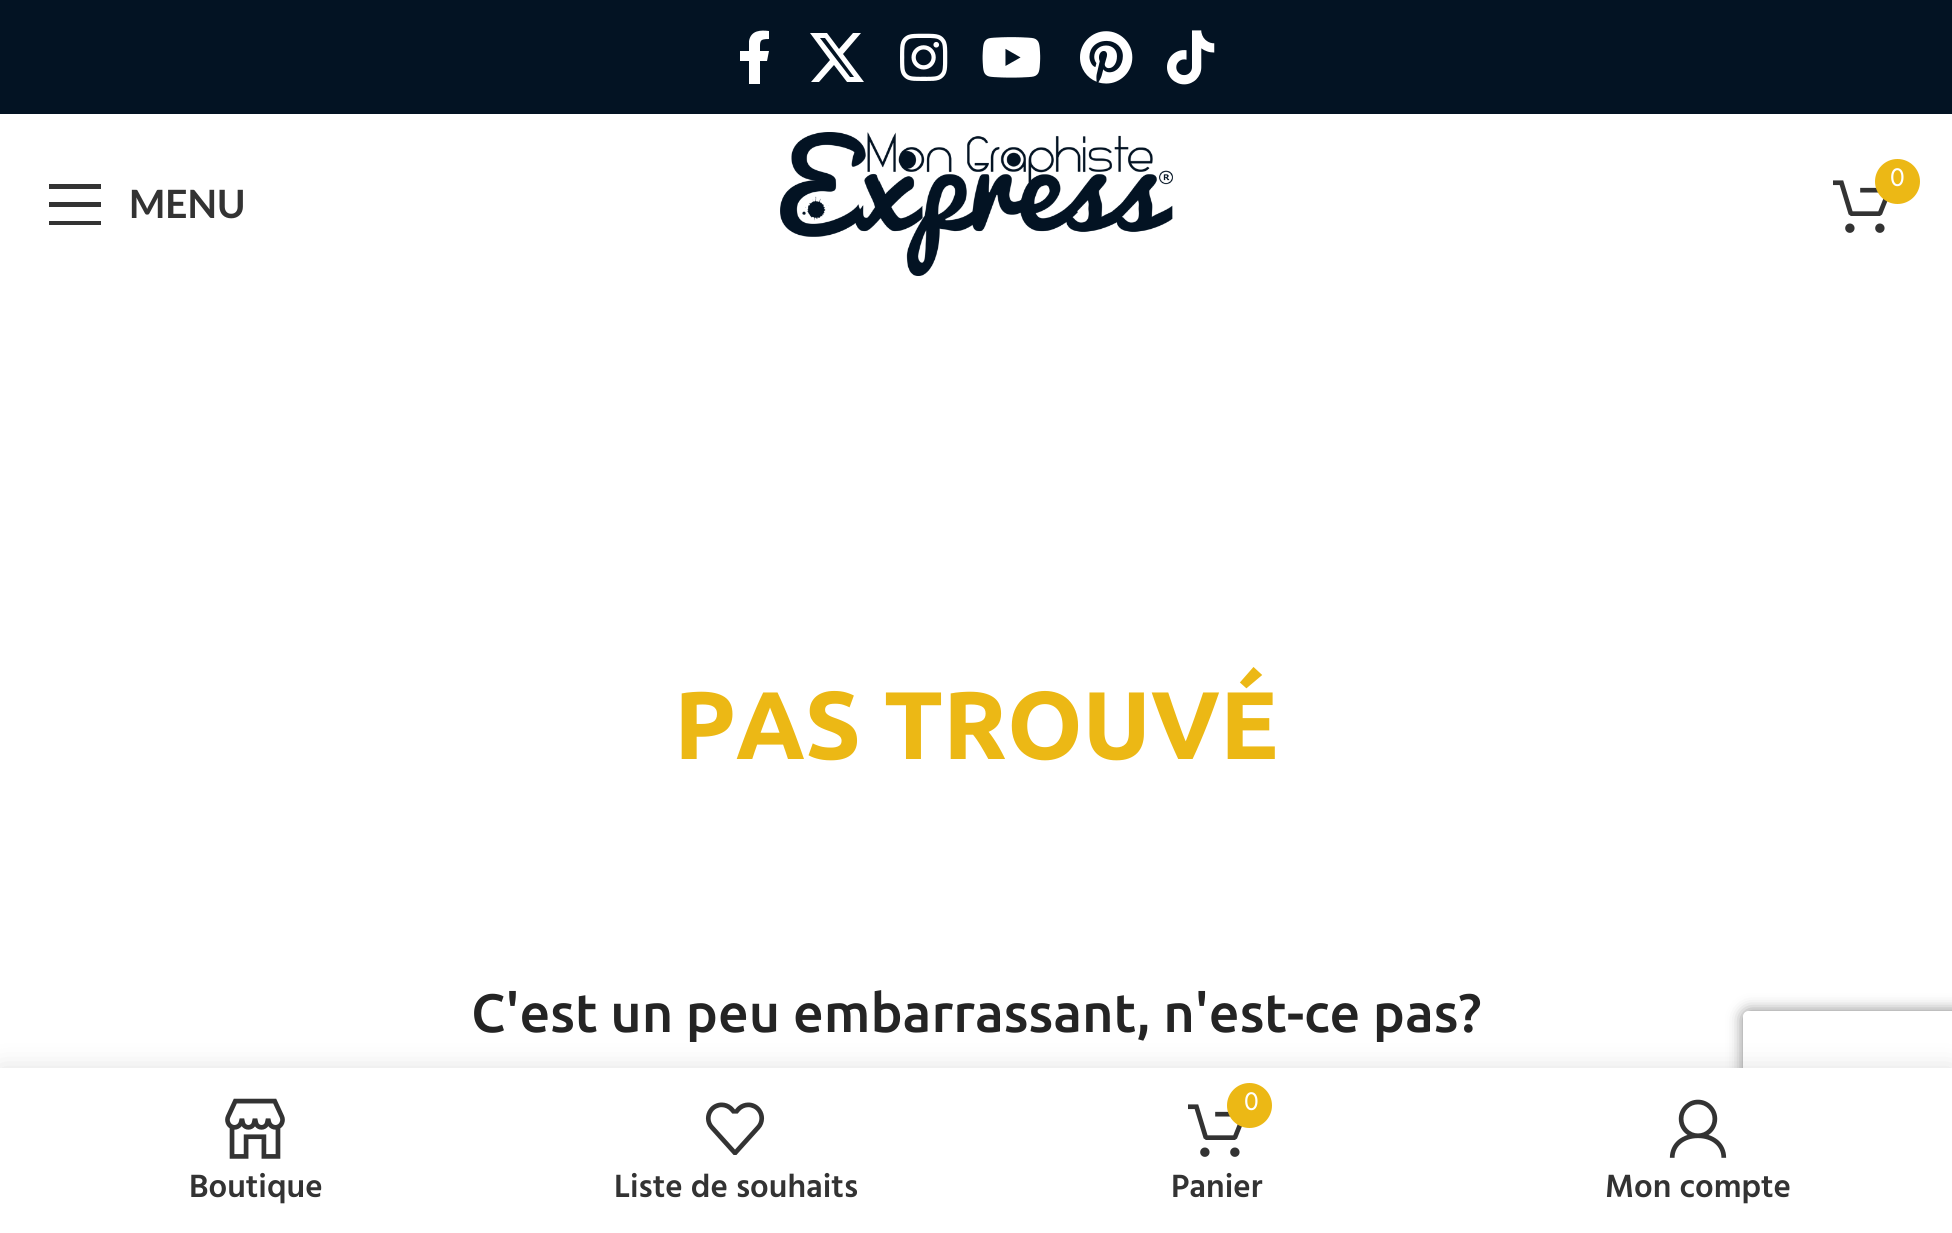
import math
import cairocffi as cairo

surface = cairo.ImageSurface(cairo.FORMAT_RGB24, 1952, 1233)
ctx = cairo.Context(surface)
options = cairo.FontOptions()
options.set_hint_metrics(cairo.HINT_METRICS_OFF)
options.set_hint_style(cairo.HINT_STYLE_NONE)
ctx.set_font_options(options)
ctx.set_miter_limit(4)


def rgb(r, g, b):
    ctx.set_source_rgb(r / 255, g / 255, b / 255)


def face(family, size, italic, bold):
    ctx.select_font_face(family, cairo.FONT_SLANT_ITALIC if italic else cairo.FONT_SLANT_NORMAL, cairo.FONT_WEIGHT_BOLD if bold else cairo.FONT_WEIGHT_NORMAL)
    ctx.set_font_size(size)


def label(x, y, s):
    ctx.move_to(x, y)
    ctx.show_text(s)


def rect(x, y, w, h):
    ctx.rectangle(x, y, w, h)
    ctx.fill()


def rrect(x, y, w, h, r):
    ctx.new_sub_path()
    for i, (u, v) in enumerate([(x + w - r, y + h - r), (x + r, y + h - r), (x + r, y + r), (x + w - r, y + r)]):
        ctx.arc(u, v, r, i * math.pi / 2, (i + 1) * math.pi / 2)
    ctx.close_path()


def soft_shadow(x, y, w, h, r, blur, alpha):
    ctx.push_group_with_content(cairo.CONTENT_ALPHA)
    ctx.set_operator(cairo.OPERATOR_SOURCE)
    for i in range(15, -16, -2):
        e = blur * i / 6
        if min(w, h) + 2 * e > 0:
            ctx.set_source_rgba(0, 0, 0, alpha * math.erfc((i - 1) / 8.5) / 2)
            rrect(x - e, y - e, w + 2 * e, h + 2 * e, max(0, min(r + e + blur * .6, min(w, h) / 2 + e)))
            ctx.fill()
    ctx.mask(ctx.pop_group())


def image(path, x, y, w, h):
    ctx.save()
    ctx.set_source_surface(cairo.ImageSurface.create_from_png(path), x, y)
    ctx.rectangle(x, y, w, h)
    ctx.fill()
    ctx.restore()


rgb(255, 255, 255)
ctx.paint()
rgb(3, 19, 35)
rect(0, 0, 1952, 114)
rgb(255, 255, 255)
ctx.new_path()
ctx.move_to(767, 61)
ctx.line_to(769, 51)
ctx.line_to(760, 51)
ctx.curve_to(760, 41, 759, 39, 769, 39)
ctx.line_to(769, 31)
ctx.curve_to(761, 30, 751, 30, 749, 41)
ctx.line_to(749, 51)
ctx.line_to(740, 51)
ctx.line_to(740, 61)
ctx.line_to(749, 61)
ctx.line_to(749, 84)
ctx.line_to(760, 84)
ctx.line_to(760, 61)
ctx.close_path()
ctx.fill()
ctx.new_path()
ctx.move_to(853, 33)
ctx.line_to(861, 33)
ctx.line_to(843, 54)
ctx.line_to(864, 82)
ctx.line_to(847, 82)
ctx.line_to(834, 65)
ctx.line_to(819, 82)
ctx.line_to(811, 82)
ctx.line_to(830, 60)
ctx.line_to(810, 33)
ctx.line_to(827, 33)
ctx.line_to(839, 49)
ctx.close_path()
ctx.move_to(850, 77)
ctx.line_to(854, 77)
ctx.line_to(825, 38)
ctx.line_to(820, 38)
ctx.close_path()
ctx.fill()
image('image0.png', 900, 33, 48, 48)
image('image1.png', 982, 37, 59, 41)
image('image2.png', 1080, 31, 53, 53)
image('image3.png', 1167, 30, 48, 55)
image('image4.png', 780, 132, 393, 144)
image('image5.png', 1833, 180, 55, 53)
rgb(236, 184, 21)
ctx.arc(1897.5, 181.5, 22.5, 0, 2 * math.pi)
ctx.fill()
face('Hind', 27, 0, 0)
rgb(255, 255, 255)
label(1890, 186, '0')
rgb(51, 51, 51)
ctx.new_path()
ctx.move_to(49, 189)
ctx.line_to(101, 189)
ctx.line_to(101, 184)
ctx.line_to(49, 184)
ctx.close_path()
ctx.move_to(49, 207)
ctx.line_to(101, 207)
ctx.line_to(101, 202)
ctx.line_to(49, 202)
ctx.close_path()
ctx.move_to(49, 225)
ctx.line_to(101, 225)
ctx.line_to(101, 221)
ctx.line_to(49, 221)
ctx.close_path()
ctx.fill()
face('Lato', 39, 0, 1)
label(129, 218, 'MENU')
face('Ubuntu', 96, 0, 1)
rgb(236, 184, 21)
label(674, 759, 'PAS TROUVÉ')
face('Ubuntu Medium', 54, 0, 0)
rgb(36, 36, 36)
label(471, 1032, 'C\'est un peu embarrassant, n\'est-ce pas?')
rgb(0, 0, 0)
soft_shadow(0, 1068, 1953, 165, 0, 13.5, 0.12)
ctx.save()
ctx.set_fill_rule(cairo.FILL_RULE_EVEN_ODD)
ctx.new_path()
ctx.move_to(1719, 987)
ctx.line_to(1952, 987)
ctx.line_to(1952, 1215)
ctx.line_to(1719, 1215)
ctx.close_path()
ctx.move_to(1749, 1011)
ctx.line_to(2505, 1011)
ctx.curve_to(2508.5, 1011, 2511, 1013.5, 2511, 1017)
ctx.line_to(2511, 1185)
ctx.curve_to(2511, 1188.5, 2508.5, 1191, 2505, 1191)
ctx.line_to(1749, 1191)
ctx.curve_to(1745.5, 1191, 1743, 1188.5, 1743, 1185)
ctx.line_to(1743, 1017)
ctx.curve_to(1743, 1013.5, 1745.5, 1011, 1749, 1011)
ctx.close_path()
ctx.clip()
rgb(128, 128, 128)
soft_shadow(1743, 1011, 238, 180, 6, 7.5, 1)
ctx.restore()
rgb(255, 255, 255)
rect(0, 1068, 1952, 165)
image('image6.png', 225, 1098, 60, 61)
face('Hind SemiBold', 33, 0, 0)
rgb(51, 51, 51)
label(189, 1197, 'Boutique')
image('image7.png', 705, 1102, 60, 53)
label(614, 1197, 'Liste de souhaits')
image('image8.png', 1188, 1104, 54, 53)
rgb(236, 184, 21)
ctx.arc(1249.5, 1105.5, 22.5, 0, 2 * math.pi)
ctx.fill()
face('Hind', 27, 0, 0)
rgb(255, 255, 255)
label(1244, 1110, '0')
face('Hind SemiBold', 33, 0, 0)
rgb(51, 51, 51)
label(1171, 1197, 'Panier')
image('image9.png', 1669, 1099, 58, 59)
label(1605, 1197, 'Mon compte')
surface.write_to_png('render.png')
